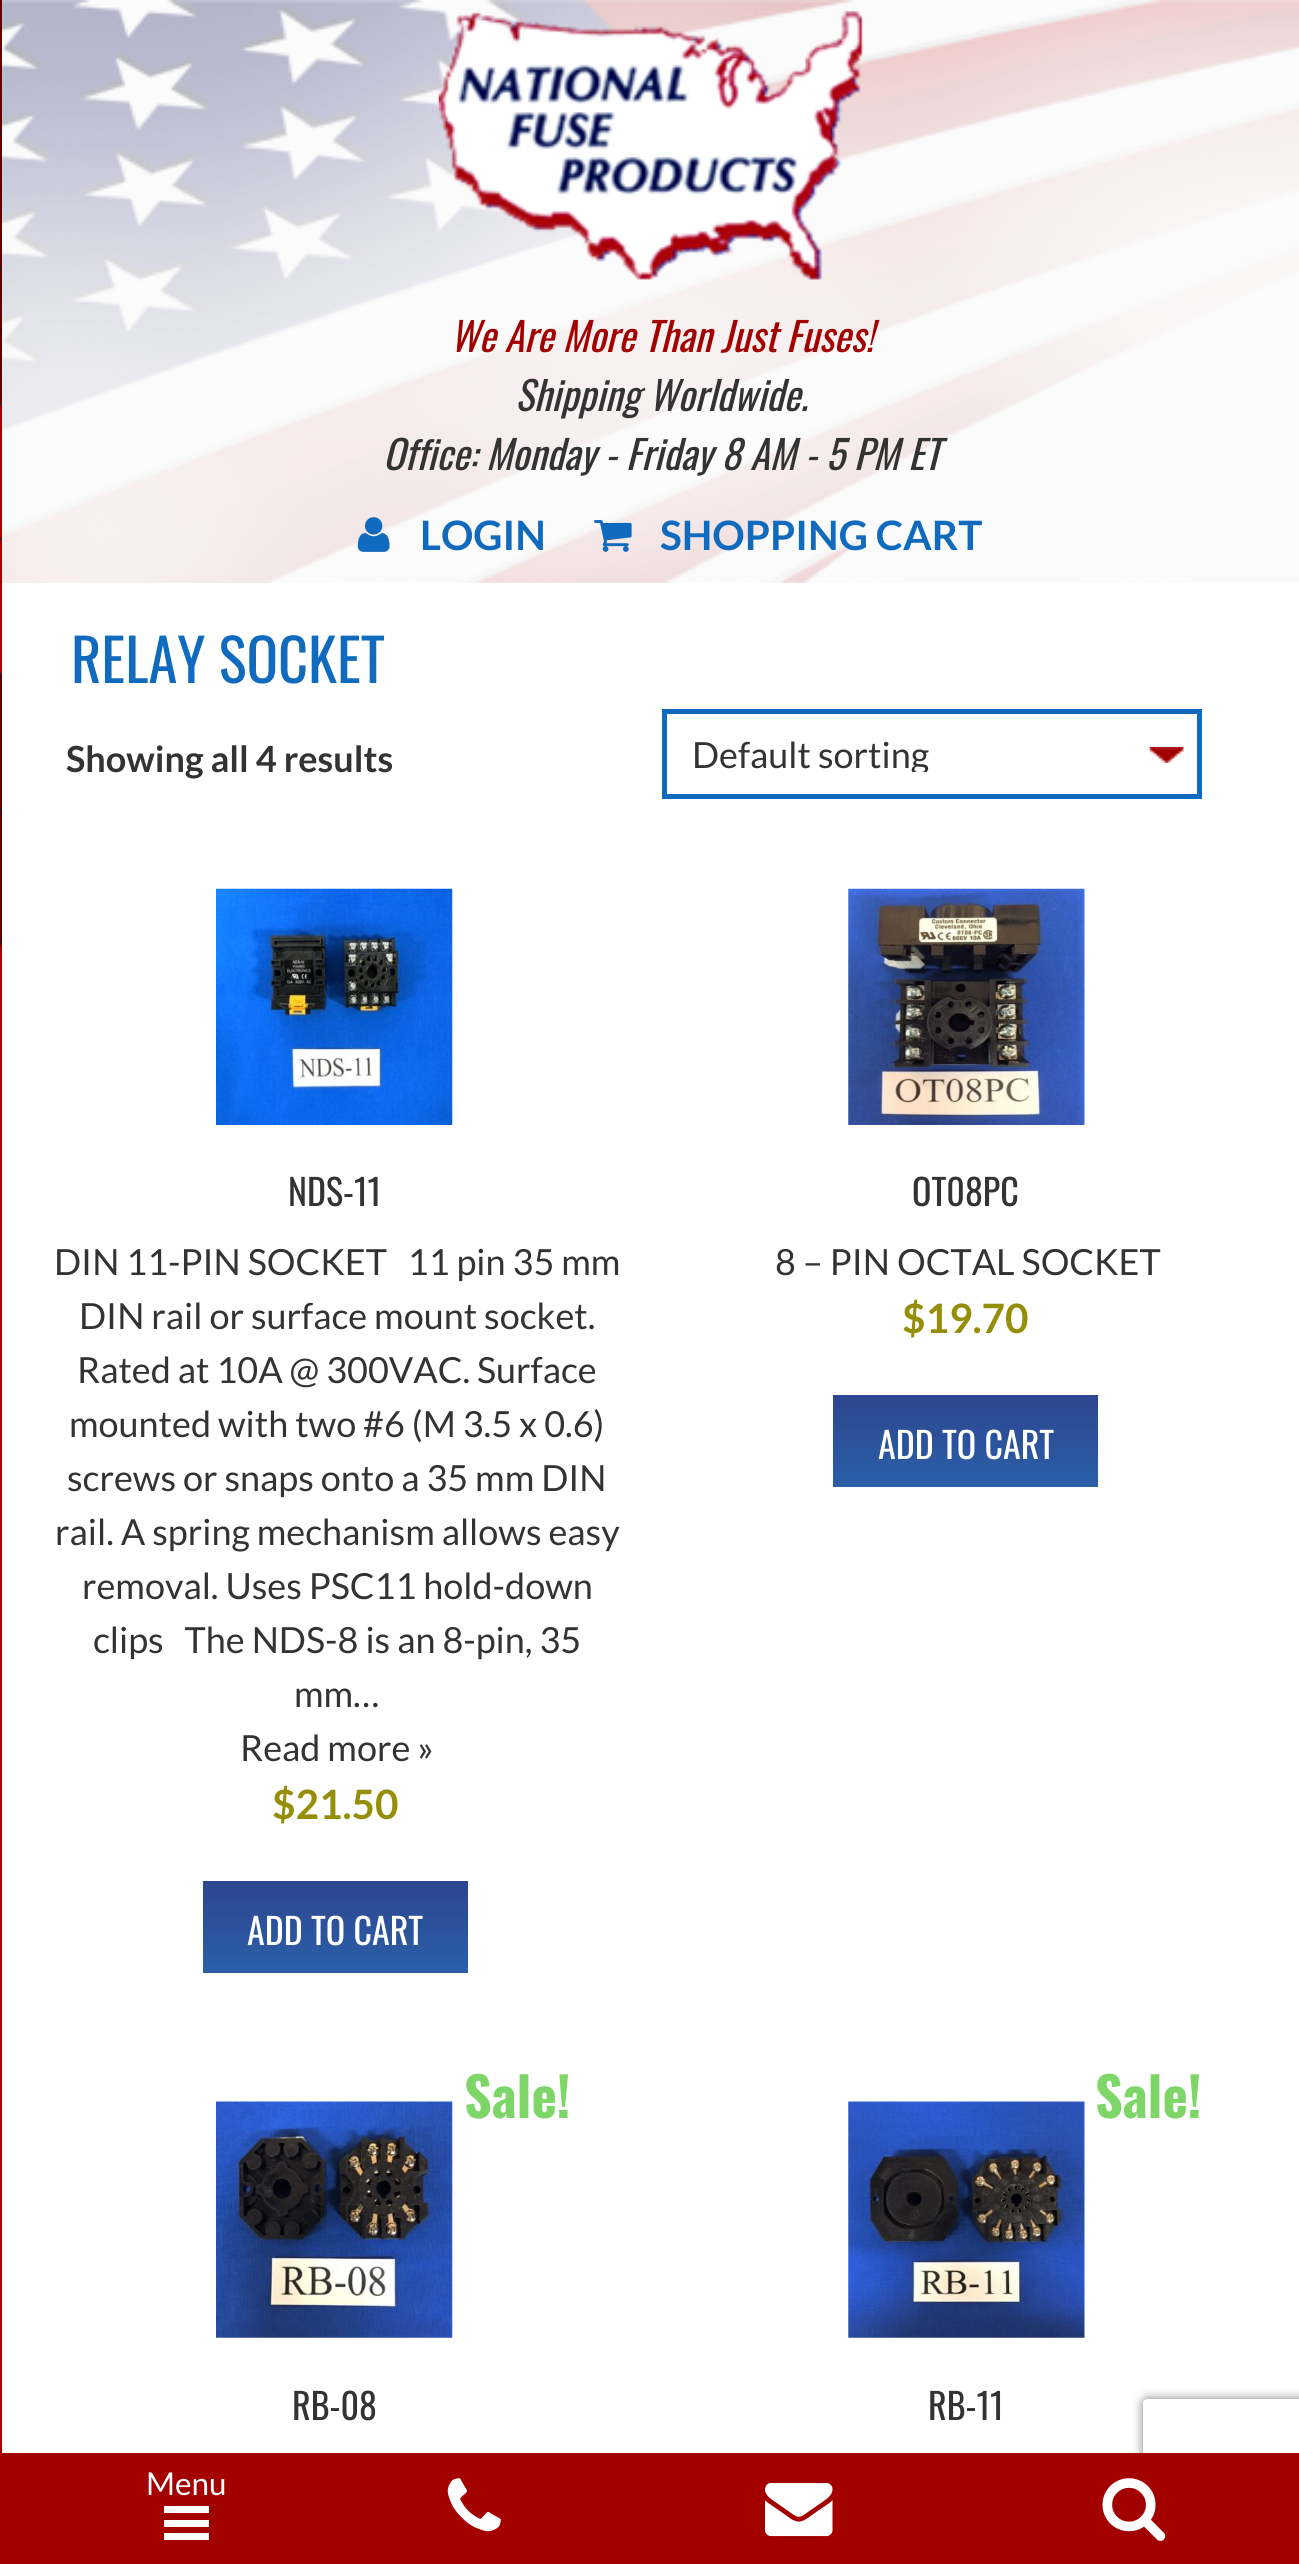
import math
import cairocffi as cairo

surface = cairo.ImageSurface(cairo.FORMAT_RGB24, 1299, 2564)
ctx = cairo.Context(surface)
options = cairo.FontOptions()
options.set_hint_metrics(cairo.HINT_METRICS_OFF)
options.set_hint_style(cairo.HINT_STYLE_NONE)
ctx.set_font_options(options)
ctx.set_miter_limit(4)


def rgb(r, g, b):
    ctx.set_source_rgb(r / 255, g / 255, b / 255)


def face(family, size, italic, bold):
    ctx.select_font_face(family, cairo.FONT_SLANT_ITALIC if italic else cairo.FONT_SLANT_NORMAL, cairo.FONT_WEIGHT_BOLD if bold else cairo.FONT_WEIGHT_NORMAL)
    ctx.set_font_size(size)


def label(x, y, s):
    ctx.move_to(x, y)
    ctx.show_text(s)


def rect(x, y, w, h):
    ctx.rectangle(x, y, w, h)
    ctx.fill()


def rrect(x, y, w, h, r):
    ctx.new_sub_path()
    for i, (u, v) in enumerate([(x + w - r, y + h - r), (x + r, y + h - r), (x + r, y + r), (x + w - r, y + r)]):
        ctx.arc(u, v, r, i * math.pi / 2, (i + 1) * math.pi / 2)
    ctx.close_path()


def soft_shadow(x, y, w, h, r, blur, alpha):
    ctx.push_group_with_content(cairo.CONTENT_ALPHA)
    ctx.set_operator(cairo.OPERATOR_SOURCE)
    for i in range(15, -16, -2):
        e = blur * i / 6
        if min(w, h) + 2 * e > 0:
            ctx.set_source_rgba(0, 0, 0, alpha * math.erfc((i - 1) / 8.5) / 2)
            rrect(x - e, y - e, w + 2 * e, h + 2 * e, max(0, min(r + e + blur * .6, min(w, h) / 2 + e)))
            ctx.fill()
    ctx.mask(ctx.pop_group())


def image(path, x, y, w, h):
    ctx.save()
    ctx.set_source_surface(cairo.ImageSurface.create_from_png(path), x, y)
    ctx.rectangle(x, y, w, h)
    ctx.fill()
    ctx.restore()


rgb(255, 255, 255)
ctx.paint()
image('image0.png', 2, 582, 1297, 1)
image('image1.png', 2, 0, 1297, 583)
ctx.set_source_rgba(0.98, 0.98, 0.98, 0.7)
rect(2, 0, 1297, 583)
image('image2.png', 438, 11, 425, 269)
face('Oswald', 39.6, 1, 0)
rgb(163, 0, 0)
label(450, 352, 'We Are More Than Just Fuses!')
rgb(51, 51, 51)
label(515, 411, 'Shipping Worldwide.')
label(383, 470, 'Office: Monday - Friday 8 AM - 5 PM ET')
image('image3.png', 357, 517, 33, 35)
face('Lato', 40.5, 0, 1)
rgb(16, 106, 190)
label(420, 550, 'LOGIN')
image('image4.png', 594, 520, 38, 32)
label(660, 550, 'SHOPPING CART')
ctx.save()
ctx.set_fill_rule(cairo.FILL_RULE_EVEN_ODD)
ctx.new_path()
ctx.move_to(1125, 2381)
ctx.line_to(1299, 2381)
ctx.line_to(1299, 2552)
ctx.line_to(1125, 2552)
ctx.close_path()
ctx.move_to(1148, 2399)
ctx.line_to(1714, 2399)
ctx.curve_to(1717, 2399, 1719, 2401, 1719, 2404)
ctx.line_to(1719, 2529)
ctx.curve_to(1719, 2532, 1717, 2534, 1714, 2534)
ctx.line_to(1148, 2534)
ctx.curve_to(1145, 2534, 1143, 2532, 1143, 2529)
ctx.line_to(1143, 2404)
ctx.curve_to(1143, 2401, 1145, 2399, 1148, 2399)
ctx.close_path()
ctx.clip()
rgb(128, 128, 128)
soft_shadow(1143, 2399, 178, 135, 5, 5.5, 1)
ctx.restore()
rgb(163, 0, 0)
rect(2, 2453, 1297, 111)
rect(0, 405, 2, 2159)
rgb(33, 33, 33)
rect(0, 133, 2, 2)
rgb(94, 0, 0)
rect(0, 0, 2, 133)
rgb(33, 33, 33)
rect(0, 268, 2, 2)
rgb(94, 0, 0)
rect(0, 135, 2, 133)
rgb(33, 33, 33)
rect(0, 403, 2, 2)
rgb(94, 0, 0)
rect(0, 270, 2, 133)
rgb(33, 33, 33)
rect(0, 538, 2, 2)
rect(0, 673, 2, 2)
rect(0, 808, 2, 2)
rgb(94, 0, 0)
rect(0, 675, 2, 133)
rgb(33, 33, 33)
rect(0, 943, 2, 2)
rgb(94, 0, 0)
rect(0, 810, 2, 133)
face('Lato', 31.5, 0, 0)
rgb(255, 255, 255)
label(146, 2495, 'Menu')
ctx.new_path()
ctx.move_to(209, 2513)
ctx.line_to(209, 2506)
ctx.line_to(164, 2506)
ctx.line_to(164, 2513)
ctx.close_path()
ctx.move_to(209, 2527)
ctx.line_to(209, 2520)
ctx.line_to(164, 2520)
ctx.line_to(164, 2527)
ctx.close_path()
ctx.move_to(209, 2540)
ctx.line_to(209, 2533)
ctx.line_to(164, 2533)
ctx.line_to(164, 2540)
ctx.close_path()
ctx.fill()
image('image5.png', 447, 2478, 54, 54)
image('image6.png', 765, 2483, 68, 54)
image('image7.png', 1102, 2478, 64, 63)
face('Oswald', 58.5, 0, 0)
rgb(16, 106, 190)
label(71, 683, 'RELAY SOCKET')
face('Lato', 36, 0, 1)
rgb(51, 51, 51)
label(66, 772, 'Showing all 4 results')
image('image8.png', 1149, 747, 35, 16)
ctx.rectangle(664.5, 711.5, 535, 85)
rgb(16, 106, 190)
ctx.set_line_width(5)
ctx.stroke()
ctx.save()
ctx.rectangle(693, 736, 477, 36)
ctx.clip()
face('Lato', 36, 0, 0)
rgb(51, 51, 51)
label(692, 768, 'Default sorting')
ctx.restore()
image('image9.png', 216, 888, 237, 237)
face('Oswald', 36, 0, 0)
rgb(51, 51, 51)
label(288, 1206, 'NDS-11')
face('Lato', 36, 0, 0)
label(54, 1275, 'DIN 11-PIN SOCKET   11 pin 35 mm')
label(79, 1329, 'DIN rail or surface mount socket.')
label(77, 1383, 'Rated at 10A @ 300VAC. Surface')
label(69, 1437, 'mounted with two #6 (M 3.5 x 0.6)')
label(67, 1491, 'screws or snaps onto a 35 mm DIN')
label(55, 1545, 'rail. A spring mechanism allows easy')
label(82, 1599, 'removal. Uses PSC11 hold-down')
label(93, 1653, 'clips   The NDS-8 is an 8-pin, 35')
label(294, 1707, 'mm…')
label(240, 1761, 'Read more »')
face('Lato', 40.5, 0, 1)
rgb(149, 142, 9)
label(272, 1819, '$21.50')
gradient = cairo.LinearGradient(335, 1881, 335, 1973)
gradient.add_color_stop_rgba(0, 0.176, 0.271, 0.561, 1)
gradient.add_color_stop_rgba(1, 0.165, 0.376, 0.659, 1)
ctx.set_source(gradient)
rect(203, 1881, 265, 92)
face('Oswald', 36, 0, 0)
rgb(255, 255, 255)
label(247, 1945, 'ADD TO CART')
image('image10.png', 848, 888, 237, 237)
rgb(51, 51, 51)
label(912, 1206, 'OT08PC')
face('Lato', 36, 0, 0)
label(775, 1275, '8 – PIN OCTAL SOCKET')
face('Lato', 40.5, 0, 1)
rgb(149, 142, 9)
label(902, 1333, '$19.70')
gradient = cairo.LinearGradient(965, 1395, 965, 1487)
gradient.add_color_stop_rgba(0, 0.176, 0.271, 0.561, 1)
gradient.add_color_stop_rgba(1, 0.165, 0.376, 0.659, 1)
ctx.set_source(gradient)
rect(833, 1395, 265, 92)
face('Oswald', 36, 0, 0)
rgb(255, 255, 255)
label(878, 1459, 'ADD TO CART')
face('Oswald', 54, 0, 1)
rgb(125, 214, 103)
label(464, 2118, 'Sale!')
image('image11.png', 216, 2101, 237, 237)
face('Oswald', 36, 0, 0)
rgb(51, 51, 51)
label(292, 2420, 'RB-08')
face('Oswald', 54, 0, 1)
rgb(125, 214, 103)
label(1095, 2118, 'Sale!')
image('image12.png', 848, 2101, 237, 237)
face('Oswald', 36, 0, 0)
rgb(51, 51, 51)
label(928, 2420, 'RB-11')
surface.write_to_png('render.png')
